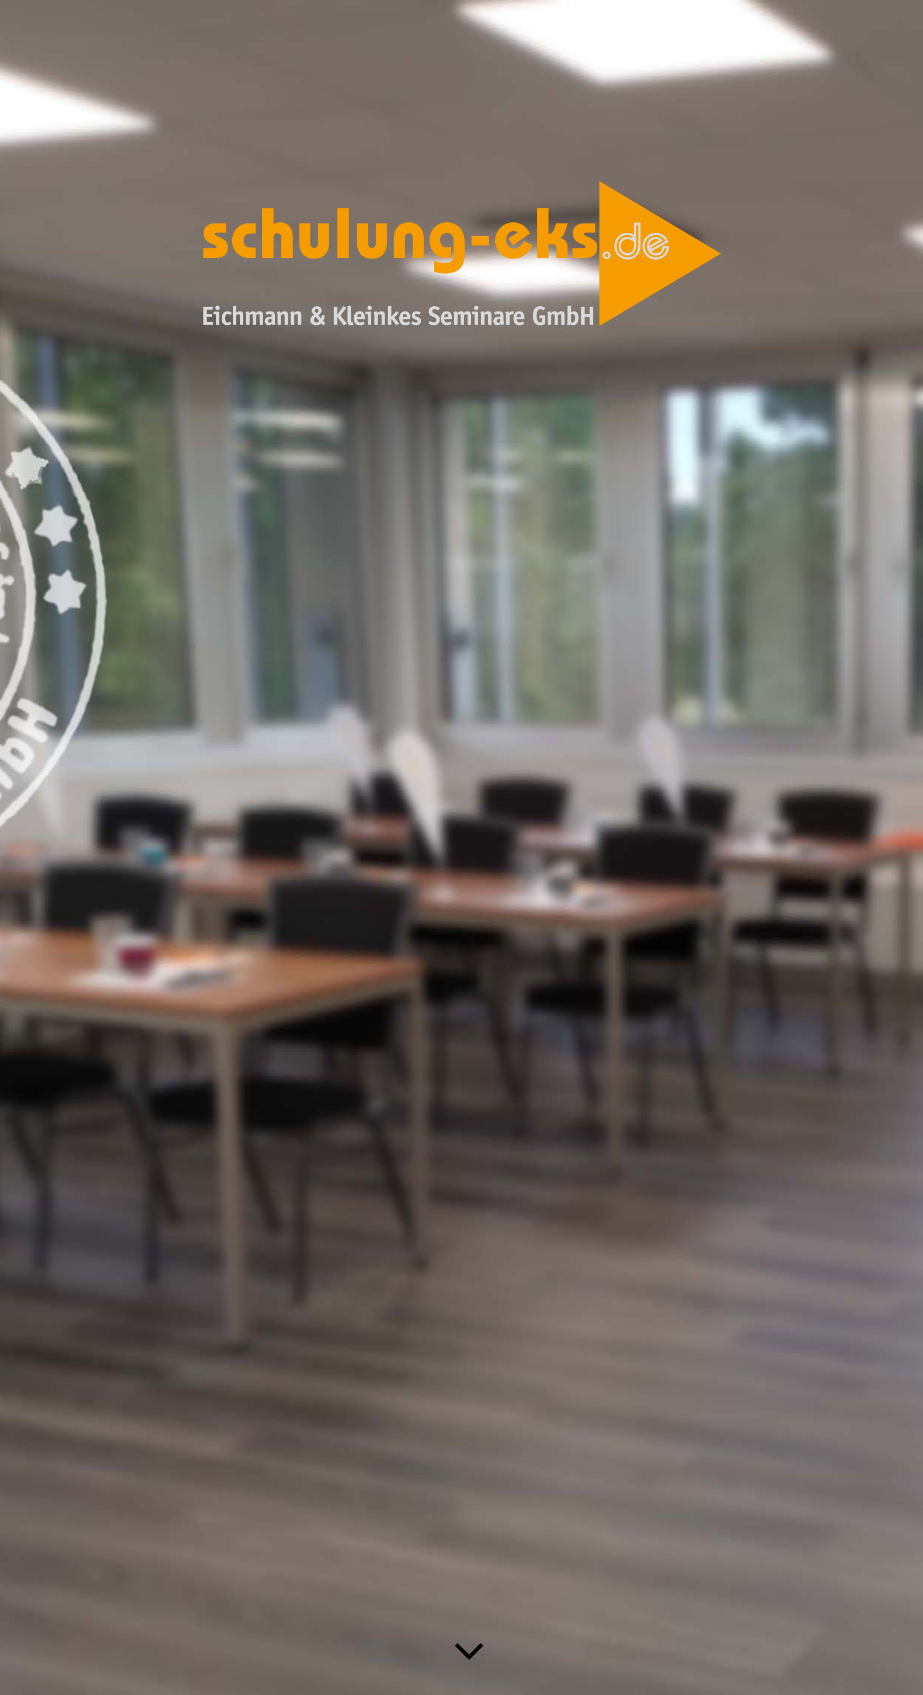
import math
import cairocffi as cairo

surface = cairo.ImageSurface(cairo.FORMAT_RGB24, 923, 1695)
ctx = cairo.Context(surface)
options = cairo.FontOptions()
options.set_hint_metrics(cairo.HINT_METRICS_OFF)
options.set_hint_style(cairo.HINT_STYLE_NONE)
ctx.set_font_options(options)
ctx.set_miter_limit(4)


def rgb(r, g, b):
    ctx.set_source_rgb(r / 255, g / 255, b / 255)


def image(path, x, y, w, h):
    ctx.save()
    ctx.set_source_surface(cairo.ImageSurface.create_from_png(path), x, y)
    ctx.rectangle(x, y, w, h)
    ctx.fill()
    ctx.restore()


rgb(255, 255, 255)
ctx.paint()
image('image0.png', 0, 0, 923, 1695)
image('image1.png', 203, 181, 518, 145)
image('image2.png', 455, 1643, 28, 17)
surface.write_to_png('render.png')
